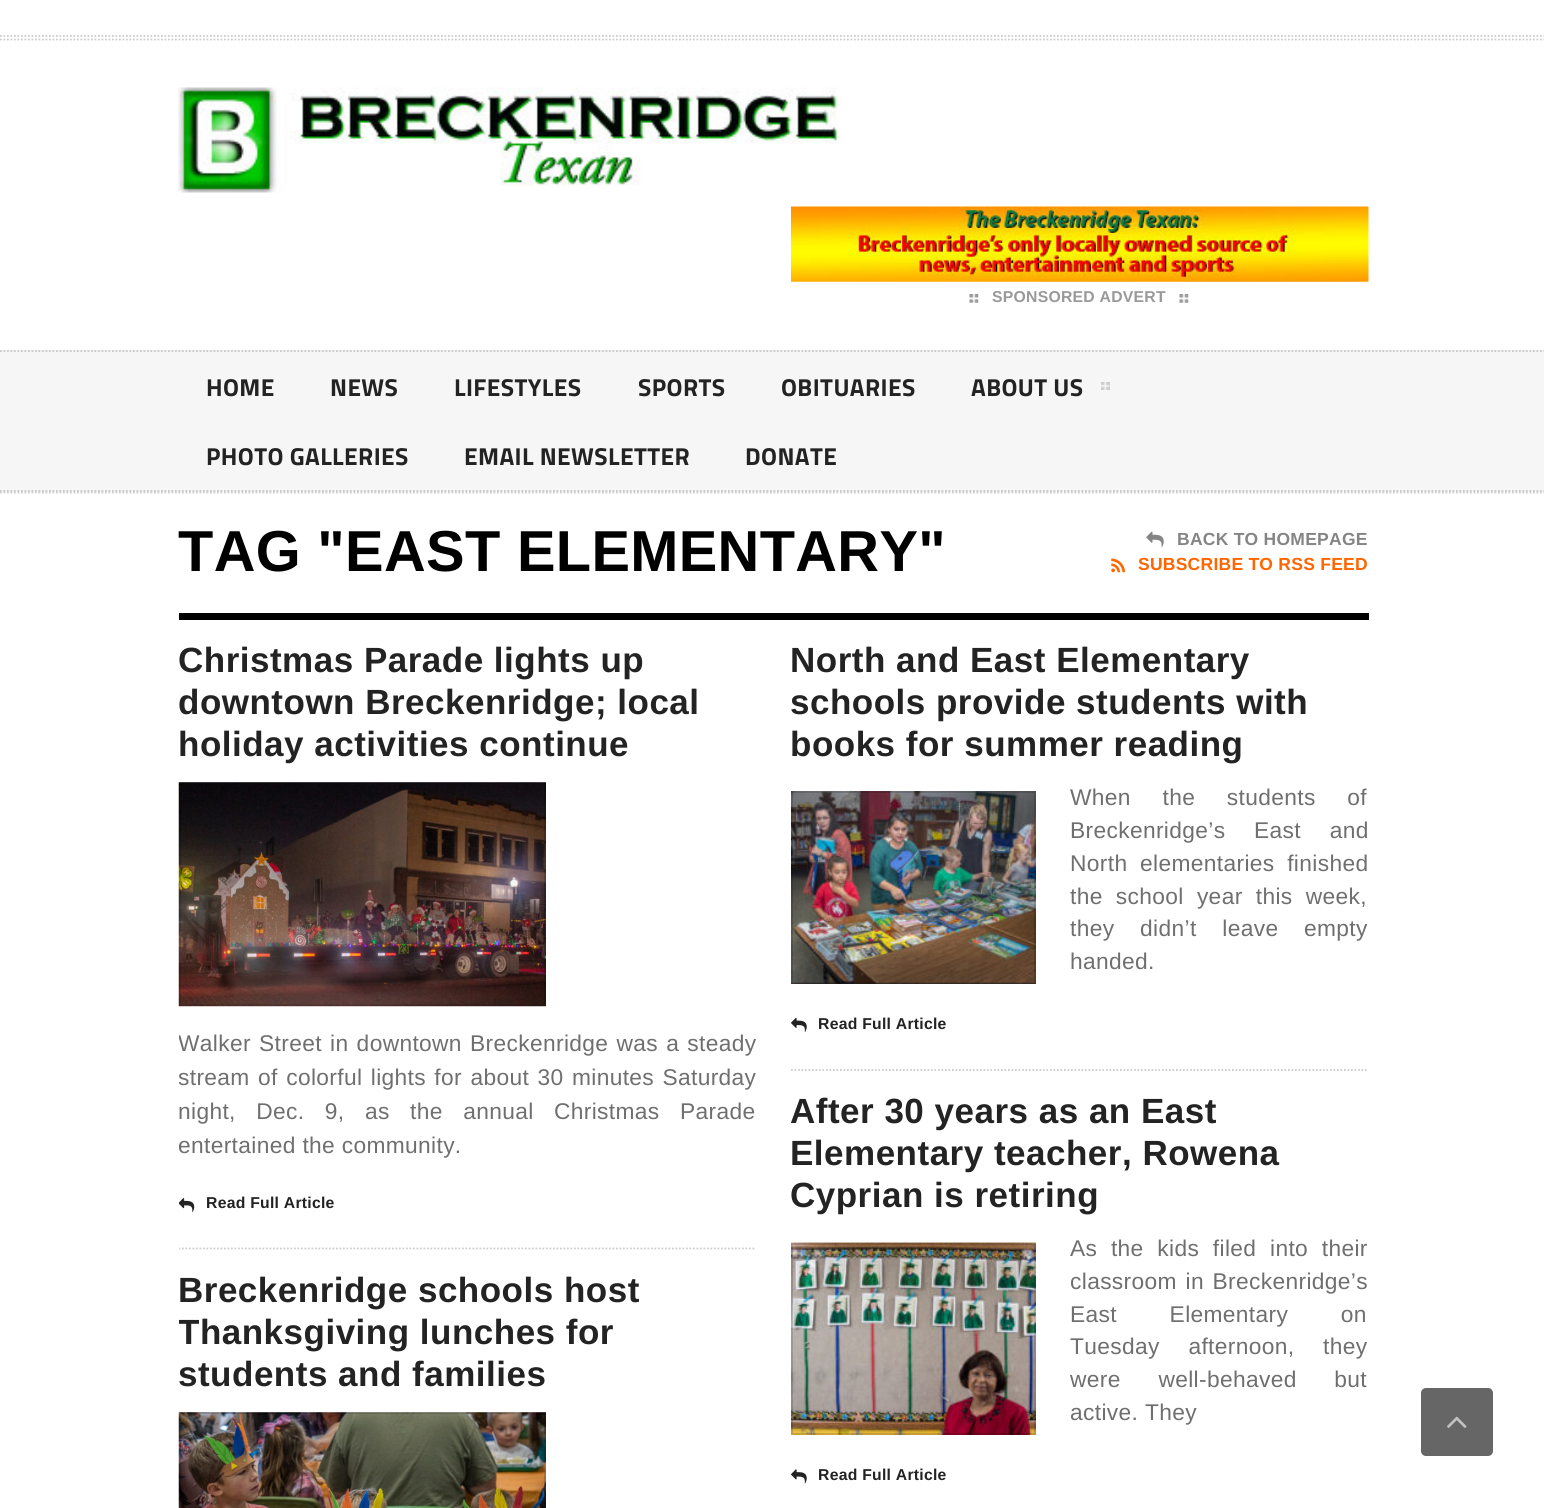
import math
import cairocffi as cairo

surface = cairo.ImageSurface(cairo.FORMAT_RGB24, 1544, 1508)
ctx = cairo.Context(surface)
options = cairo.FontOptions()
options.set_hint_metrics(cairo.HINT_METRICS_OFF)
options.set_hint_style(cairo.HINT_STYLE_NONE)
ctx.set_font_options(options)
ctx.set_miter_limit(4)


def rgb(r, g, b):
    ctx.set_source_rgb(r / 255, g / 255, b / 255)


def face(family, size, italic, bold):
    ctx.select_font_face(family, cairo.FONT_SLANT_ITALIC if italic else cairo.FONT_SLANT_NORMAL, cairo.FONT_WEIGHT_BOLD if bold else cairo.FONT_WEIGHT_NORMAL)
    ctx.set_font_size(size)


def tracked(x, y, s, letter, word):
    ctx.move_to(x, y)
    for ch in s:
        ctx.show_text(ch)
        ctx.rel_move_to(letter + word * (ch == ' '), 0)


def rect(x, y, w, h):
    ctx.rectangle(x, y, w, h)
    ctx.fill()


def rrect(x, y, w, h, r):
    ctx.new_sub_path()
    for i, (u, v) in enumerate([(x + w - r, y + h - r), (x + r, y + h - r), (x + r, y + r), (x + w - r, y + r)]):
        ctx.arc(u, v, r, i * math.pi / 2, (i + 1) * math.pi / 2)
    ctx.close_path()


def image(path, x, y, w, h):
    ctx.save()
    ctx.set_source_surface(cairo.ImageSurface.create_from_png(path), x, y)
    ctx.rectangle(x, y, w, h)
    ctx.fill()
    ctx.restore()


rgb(255, 255, 255)
ctx.paint()
ctx.new_path()
ctx.move_to(0, 36)
ctx.line_to(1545, 36)
rgb(204, 204, 204)
ctx.set_line_width(1.8)
ctx.set_dash([1.75, 1.75])
ctx.stroke()
ctx.new_path()
ctx.move_to(0, 39.5)
ctx.line_to(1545, 39.5)
ctx.stroke()
image('image0.png', 178, 87, 659, 106)
image('image1.png', 791, 206, 578, 76)
image('image2.png', 969, 294, 10, 9)
face('Liberation Sans', 15.75, 0, 1)
rgb(153, 153, 153)
tracked(992, 302, 'SPONSORED ADVERT', 0.25, 0)
image('image2.png', 1179, 294, 10, 9)
rgb(246, 246, 246)
rect(0, 350, 1544, 142)
ctx.new_path()
ctx.move_to(0, 351)
ctx.line_to(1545, 351)
rgb(197, 197, 197)
ctx.stroke()
ctx.new_path()
ctx.move_to(0, 491)
ctx.line_to(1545, 491)
ctx.stroke()
face('Titillium Web', 24.5, 0, 1)
rgb(35, 35, 35)
tracked(206, 396, 'HOME', 0.4, 0)
tracked(330, 396, 'NEWS', 0.4, 0)
tracked(454, 396, 'LIFESTYLES', 0.4, 0)
tracked(638, 396, 'SPORTS', 0.4, 0)
tracked(781, 396, 'OBITUARIES', 0.4, 0)
tracked(971, 396, 'ABOUT US', 0.4, 0)
rgb(204, 204, 204)
rect(1101, 382, 9, 8)
image('image3.png', 1101, 382, 9, 8)
rgb(35, 35, 35)
tracked(206, 465, 'PHOTO GALLERIES', 0.4, 0)
tracked(464, 465, 'EMAIL NEWSLETTER', 0.4, 0)
tracked(745, 465, 'DONATE', 0.4, 0)
ctx.new_path()
ctx.move_to(0, 492.5)
ctx.line_to(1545, 492.5)
rgb(204, 204, 204)
ctx.stroke()
rgb(0, 0, 0)
rect(179, 613, 1190, 7)
face('Liberation Sans', 57.75, 0, 1)
tracked(178, 571, 'TAG "EAST ELEMENTARY"', 0.35, 0)
image('image4.png', 1146, 531, 18, 17)
face('Liberation Sans', 17.5, 0, 1)
rgb(133, 133, 133)
tracked(1177, 545, 'BACK TO HOMEPAGE', 0.25, 0)
image('image5.png', 1111, 558, 14, 15)
rgb(255, 102, 0)
tracked(1138, 570, 'SUBSCRIBE TO RSS FEED', 0.25, 0)
ctx.save()
ctx.rectangle(179, 646, 1190, 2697)
ctx.clip()
ctx.new_path()
ctx.move_to(178.5, 1248.5)
ctx.line_to(756, 1248.5)
rgb(204, 204, 204)
ctx.stroke()
ctx.restore()
face('Liberation Sans', 35, 0, 1)
rgb(35, 35, 35)
tracked(178, 672, 'Christmas Parade lights up', 0.5, 0)
tracked(178, 714, 'downtown Breckenridge; local', 0.5, 0)
tracked(178, 756, 'holiday activities continue', 0.5, 0)
image('image6.png', 178, 782, 368, 225)
ctx.rectangle(180, 783, 365, 222)
ctx.set_source_rgba(0, 0, 0, 0.15)
ctx.set_line_width(2)
ctx.set_dash([])
ctx.stroke()
ctx.save()
ctx.rectangle(179, 646, 1190, 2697)
ctx.clip()
face('Liberation Sans', 22.75, 0, 0)
rgb(111, 111, 111)
tracked(178, 1051, 'Walker Street in downtown Breckenridge was a steady', 0.35, 1.5)
tracked(178, 1085, 'stream of colorful lights for about 30 minutes Saturday', 0.35, 1.75)
ctx.restore()
face('Liberation Sans', 22.75, 0, 0)
rgb(111, 111, 111)
tracked(178, 1119, 'night, Dec. 9, as the annual Christmas Parade', 0.35, 13.75)
ctx.save()
ctx.rectangle(179, 646, 1190, 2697)
ctx.clip()
tracked(178, 1153, 'entertained the community.', 0.35, 0)
ctx.restore()
image('image7.png', 179, 1198, 16, 15)
face('Liberation Sans', 15.75, 0, 1)
rgb(35, 35, 35)
tracked(206, 1208, 'Read Full Article', 0.25, 0)
face('Liberation Sans', 35, 0, 1)
tracked(178, 1302, 'Breckenridge schools host', 0.5, 0)
ctx.save()
ctx.rectangle(179, 646, 1190, 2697)
ctx.clip()
tracked(178, 1344, 'Thanksgiving lunches for', 0.5, 0)
ctx.restore()
tracked(178, 1386, 'students and families', 0.5, 0)
image('image8.png', 178, 1412, 368, 96)
ctx.rectangle(180, 1413, 365, 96)
ctx.set_source_rgba(0, 0, 0, 0.15)
ctx.stroke()
ctx.new_path()
ctx.move_to(791, 1070)
ctx.line_to(1368.5, 1070)
rgb(204, 204, 204)
ctx.set_line_width(1.8)
ctx.set_dash([1.75, 1.75])
ctx.stroke()
rgb(35, 35, 35)
tracked(790, 672, 'North and East Elementary', 0.5, 0)
tracked(790, 714, 'schools provide students with', 0.5, 0)
tracked(790, 756, 'books for summer reading', 0.5, 0)
rect(791, 983, 245, 1)
image('image9.png', 791, 791, 245, 193)
ctx.rectangle(792, 792, 243, 191)
ctx.set_source_rgba(0, 0, 0, 0.15)
ctx.set_line_width(2)
ctx.set_dash([])
ctx.stroke()
face('Liberation Sans', 22.75, 0, 0)
rgb(111, 111, 111)
tracked(1070, 805, 'When the students of', 0.35, 25)
tracked(1070, 838, 'Breckenridge’s East and', 0.35, 22)
tracked(1070, 871, 'North elementaries finished', 0.35, 6)
tracked(1070, 904, 'the school year this week,', 0.35, 6.5)
tracked(1070, 936, 'they didn’t leave empty', 0.35, 19)
tracked(1070, 969, 'handed.', 0.35, 0)
image('image10.png', 791, 1017, 16, 15)
face('Liberation Sans', 15.75, 0, 1)
rgb(35, 35, 35)
tracked(818, 1029, 'Read Full Article', 0.25, 0)
face('Liberation Sans', 35, 0, 1)
tracked(790, 1123, 'After 30 years as an East', 0.5, 0)
tracked(790, 1165, 'Elementary teacher, Rowena', 0.5, 0)
tracked(790, 1207, 'Cyprian is retiring', 0.5, 0)
image('image11.png', 791, 1242, 245, 193)
ctx.rectangle(792, 1244, 243, 190)
ctx.set_source_rgba(0, 0, 0, 0.15)
ctx.stroke()
face('Liberation Sans', 22.75, 0, 0)
rgb(111, 111, 111)
tracked(1070, 1256, 'As the kids filed into their', 0.35, 7)
tracked(1070, 1289, 'classroom in Breckenridge’s', 0.35, 2)
tracked(1070, 1322, 'East Elementary on', 0.35, 46)
tracked(1070, 1354, 'Tuesday afternoon, they', 0.35, 22)
tracked(1070, 1387, 'were well-behaved but', 0.35, 31)
tracked(1070, 1420, 'active. They', 0.35, 0)
image('image12.png', 791, 1469, 16, 15)
face('Liberation Sans', 15.75, 0, 1)
rgb(35, 35, 35)
tracked(818, 1480, 'Read Full Article', 0.25, 0)
rgb(102, 102, 102)
rrect(1421, 1388, 72, 68, 5)
ctx.fill()
image('image13.png', 1447, 1416, 20, 12)
surface.write_to_png('render.png')
